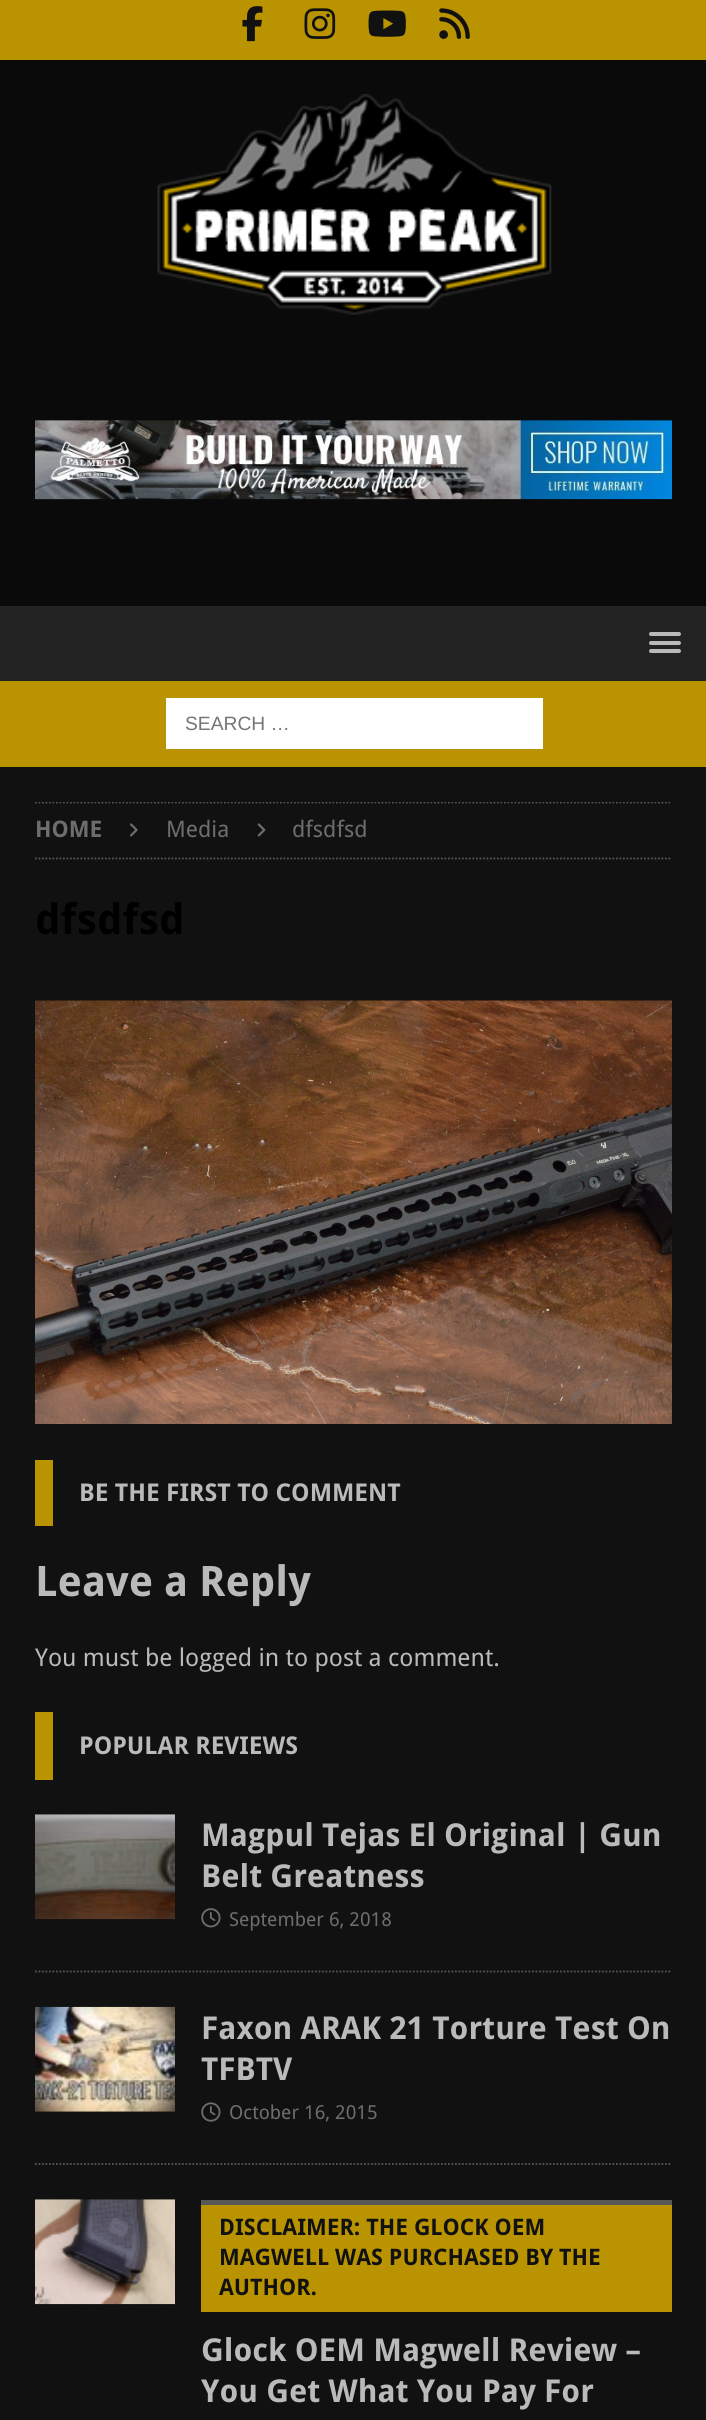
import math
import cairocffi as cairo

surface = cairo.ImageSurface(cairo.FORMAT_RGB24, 706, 2420)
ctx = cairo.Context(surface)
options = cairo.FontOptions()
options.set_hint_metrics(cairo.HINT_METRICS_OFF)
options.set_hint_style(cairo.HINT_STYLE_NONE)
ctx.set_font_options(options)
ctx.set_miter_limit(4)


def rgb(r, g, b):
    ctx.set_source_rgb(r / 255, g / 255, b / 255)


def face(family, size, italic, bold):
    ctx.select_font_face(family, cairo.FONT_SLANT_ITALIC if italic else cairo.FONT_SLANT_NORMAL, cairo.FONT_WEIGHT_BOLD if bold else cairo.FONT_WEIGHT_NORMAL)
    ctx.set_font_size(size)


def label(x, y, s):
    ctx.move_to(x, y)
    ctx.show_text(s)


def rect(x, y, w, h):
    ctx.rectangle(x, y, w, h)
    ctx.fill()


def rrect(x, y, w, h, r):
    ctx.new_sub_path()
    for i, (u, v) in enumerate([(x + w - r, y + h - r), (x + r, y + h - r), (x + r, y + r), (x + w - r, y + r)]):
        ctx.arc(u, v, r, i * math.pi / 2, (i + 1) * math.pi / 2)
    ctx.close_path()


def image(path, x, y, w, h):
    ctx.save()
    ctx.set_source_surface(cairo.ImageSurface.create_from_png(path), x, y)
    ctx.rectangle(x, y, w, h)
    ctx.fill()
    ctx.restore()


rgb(10, 10, 10)
ctx.paint()
rgb(186, 148, 0)
rect(0, 0, 706, 60)
image('image0.png', 242, 6, 21, 36)
image('image1.png', 304, 8, 32, 31)
image('image2.png', 368, 10, 38, 27)
image('image3.png', 439, 8, 31, 31)
image('image4.png', 157, 94, 395, 221)
image('image5.png', 35, 420, 637, 80)
rgb(35, 35, 35)
rect(0, 606, 706, 75)
rgb(186, 186, 186)
rrect(649, 632, 32, 4, 2)
ctx.fill()
rrect(649, 641, 32, 4, 2)
ctx.fill()
rrect(649, 649, 32, 4, 2)
ctx.fill()
rgb(186, 148, 0)
rect(0, 681, 706, 86)
rgb(255, 255, 255)
rect(166, 698, 377, 51)
face('Liberation Sans', 19.25, 0, 0)
rgb(117, 117, 117)
label(185, 730, 'SEARCH …')
rgb(17, 17, 17)
rect(0, 767, 706, 1653)
ctx.save()
ctx.rectangle(35, 802, 637, 875)
ctx.clip()
ctx.new_path()
ctx.move_to(35, 802.5)
ctx.line_to(672, 802.5)
rgb(88, 88, 88)
ctx.set_line_width(1.8)
ctx.set_dash([1.75, 1.75])
ctx.stroke()
ctx.restore()
ctx.new_path()
ctx.move_to(35, 858.5)
ctx.line_to(672, 858.5)
rgb(88, 88, 88)
ctx.set_line_width(1.8)
ctx.set_dash([1.75, 1.75])
ctx.stroke()
face('Droid Sans', 22.75, 0, 1)
rgb(109, 109, 109)
label(35, 837, 'HOME')
image('image6.png', 130, 823, 8, 14)
face('Droid Sans', 22.75, 0, 0)
label(166, 837, 'Media')
image('image7.png', 257, 823, 9, 14)
label(292, 837, 'dfsdfsd')
face('Droid Sans', 42, 0, 1)
rgb(0, 0, 0)
label(35, 934, 'dfsdfsd')
image('image8.png', 35, 1000, 637, 424)
rgb(186, 148, 0)
rect(35, 1460, 18, 66)
face('Droid Sans', 24.5, 0, 1)
rgb(186, 186, 186)
label(79, 1501, 'BE THE FIRST TO COMMENT')
face('Droid Sans', 42, 0, 1)
label(35, 1596, 'Leave a Reply')
face('Droid Sans', 24.5, 0, 0)
label(35, 1666, 'You must be logged in to post a comment.')
rgb(186, 148, 0)
rect(35, 1712, 18, 68)
face('Droid Sans', 24.5, 0, 1)
rgb(186, 186, 186)
label(79, 1754, 'POPULAR REVIEWS')
ctx.new_path()
ctx.move_to(35, 1971.5)
ctx.line_to(672, 1971.5)
rgb(88, 88, 88)
ctx.stroke()
image('image9.png', 35, 1814, 140, 106)
face('Droid Sans', 31.5, 0, 1)
rgb(186, 186, 186)
label(201, 1846, 'Magpul Tejas El Original | Gun')
label(201, 1887, 'Belt Greatness')
image('image10.png', 201, 1908, 20, 20)
face('Droid Sans', 19.25, 0, 0)
rgb(109, 109, 109)
label(229, 1926, 'September 6, 2018')
ctx.new_path()
ctx.move_to(35, 2164)
ctx.line_to(672, 2164)
rgb(88, 88, 88)
ctx.stroke()
image('image11.png', 35, 2006, 140, 106)
face('Droid Sans', 31.5, 0, 1)
rgb(186, 186, 186)
label(201, 2039, 'Faxon ARAK 21 Torture Test On')
label(201, 2080, 'TFBTV')
image('image12.png', 201, 2102, 20, 20)
face('Droid Sans', 19.25, 0, 0)
rgb(109, 109, 109)
label(229, 2119, 'October 16, 2015')
image('image13.png', 35, 2199, 140, 106)
rgb(88, 88, 88)
rect(201, 2200, 471, 5)
rgb(186, 148, 0)
rect(201, 2205, 471, 107)
face('Droid Sans', 22.75, 0, 1)
rgb(17, 17, 17)
label(219, 2235, 'DISCLAIMER: THE GLOCK OEM')
label(219, 2265, 'MAGWELL WAS PURCHASED BY THE')
label(219, 2295, 'AUTHOR.')
face('Droid Sans', 31.5, 0, 1)
rgb(186, 186, 186)
label(201, 2361, 'Glock OEM Magwell Review –')
label(201, 2402, 'You Get What You Pay For')
surface.write_to_png('render.png')
